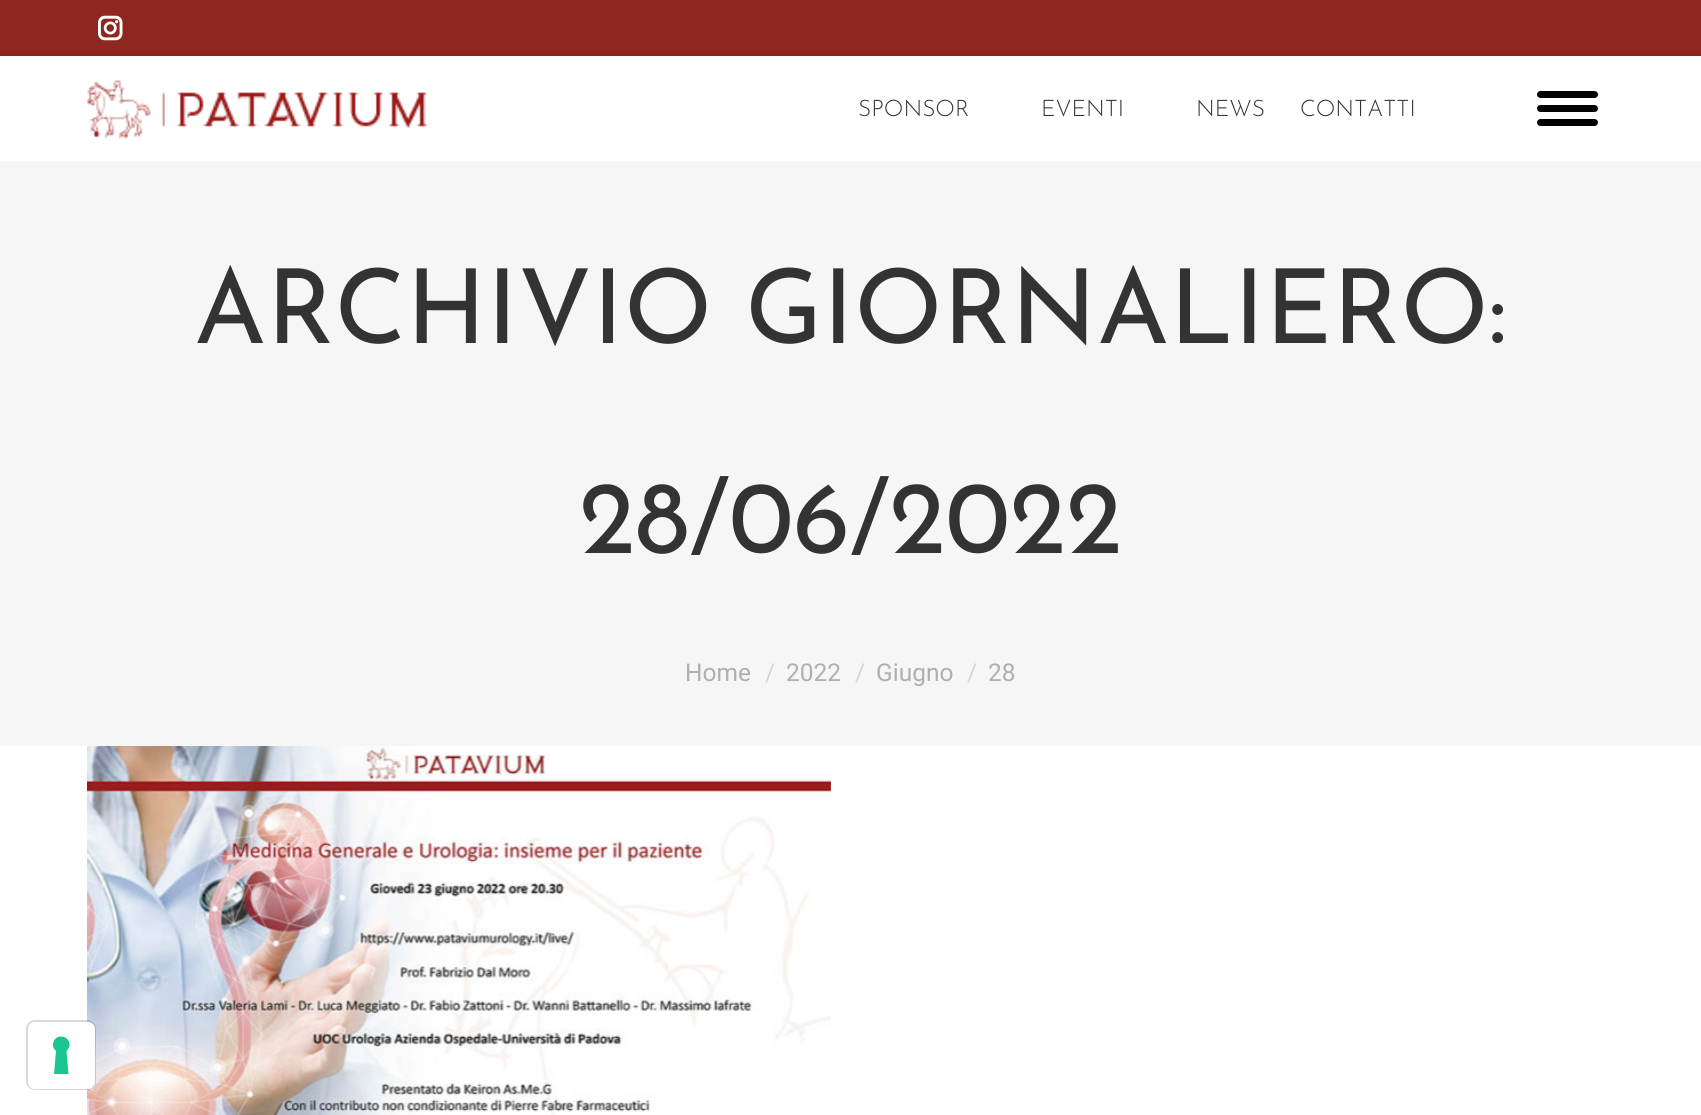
import math
import cairocffi as cairo

surface = cairo.ImageSurface(cairo.FORMAT_RGB24, 1701, 1115)
ctx = cairo.Context(surface)
options = cairo.FontOptions()
options.set_hint_metrics(cairo.HINT_METRICS_OFF)
options.set_hint_style(cairo.HINT_STYLE_NONE)
ctx.set_font_options(options)
ctx.set_miter_limit(4)


def rgb(r, g, b):
    ctx.set_source_rgb(r / 255, g / 255, b / 255)


def face(family, size, italic, bold):
    ctx.select_font_face(family, cairo.FONT_SLANT_ITALIC if italic else cairo.FONT_SLANT_NORMAL, cairo.FONT_WEIGHT_BOLD if bold else cairo.FONT_WEIGHT_NORMAL)
    ctx.set_font_size(size)


def label(x, y, s):
    ctx.move_to(x, y)
    ctx.show_text(s)


def rect(x, y, w, h):
    ctx.rectangle(x, y, w, h)
    ctx.fill()


def rrect(x, y, w, h, r):
    ctx.new_sub_path()
    for i, (u, v) in enumerate([(x + w - r, y + h - r), (x + r, y + h - r), (x + r, y + r), (x + w - r, y + r)]):
        ctx.arc(u, v, r, i * math.pi / 2, (i + 1) * math.pi / 2)
    ctx.close_path()


def image(path, x, y, w, h):
    ctx.save()
    ctx.set_source_surface(cairo.ImageSurface.create_from_png(path), x, y)
    ctx.rectangle(x, y, w, h)
    ctx.fill()
    ctx.restore()


rgb(255, 255, 255)
ctx.paint()
rgb(142, 39, 32)
rect(0, 0, 1701, 54)
image('image0.png', 98, 15, 25, 26)
rgb(132, 40, 34)
rect(0, 54, 1701, 2)
image('image1.png', 87, 80, 341, 59)
face('Josefin Sans Light', 22.75, 0, 0)
rgb(51, 51, 51)
label(858, 116, 'SPONSOR')
label(1041, 116, 'EVENTI')
label(1196, 116, 'NEWS')
label(1300, 116, 'CONTATTI')
rgb(0, 0, 0)
rrect(1537, 91, 61, 7, 3.5)
ctx.fill()
rrect(1537, 105, 61, 7, 3.5)
ctx.fill()
rrect(1537, 119, 61, 7, 3.5)
ctx.fill()
rgb(246, 246, 246)
rect(0, 161, 1701, 585)
face('Josefin Sans', 103.25, 0, 0)
rgb(51, 51, 51)
label(194, 343, 'ARCHIVIO GIORNALIERO:')
label(579, 553, '28/06/2022')
face('Roboto', 24.5, 0, 0)
rgb(173, 175, 179)
label(685, 681, 'Home')
rgb(210, 211, 213)
label(765, 681, '/')
rgb(173, 175, 179)
label(786, 681, '2022')
rgb(210, 211, 213)
label(855, 681, '/')
rgb(173, 175, 179)
label(876, 681, 'Giugno')
rgb(210, 211, 213)
label(967, 681, '/')
rgb(173, 175, 179)
label(988, 681, '28')
image('image2.png', 87, 746, 744, 369)
rrect(27, 1021, 68, 68, 8)
ctx.set_source_rgba(0, 0, 0, 0.15)
ctx.stroke()
rgb(255, 255, 255)
rrect(28, 1022, 67, 67, 7)
ctx.fill()
rgb(28, 198, 145)
ctx.set_fill_rule(cairo.FILL_RULE_EVEN_ODD)
ctx.new_path()
ctx.move_to(61, 1036.5)
ctx.curve_to(69, 1036.5, 72.5, 1046, 66.5, 1051)
ctx.line_to(68.5, 1074)
ctx.line_to(54, 1074)
ctx.line_to(56, 1051)
ctx.curve_to(50, 1046, 53.5, 1036.5, 61, 1036.5)
ctx.close_path()
ctx.fill()
surface.write_to_png('render.png')
